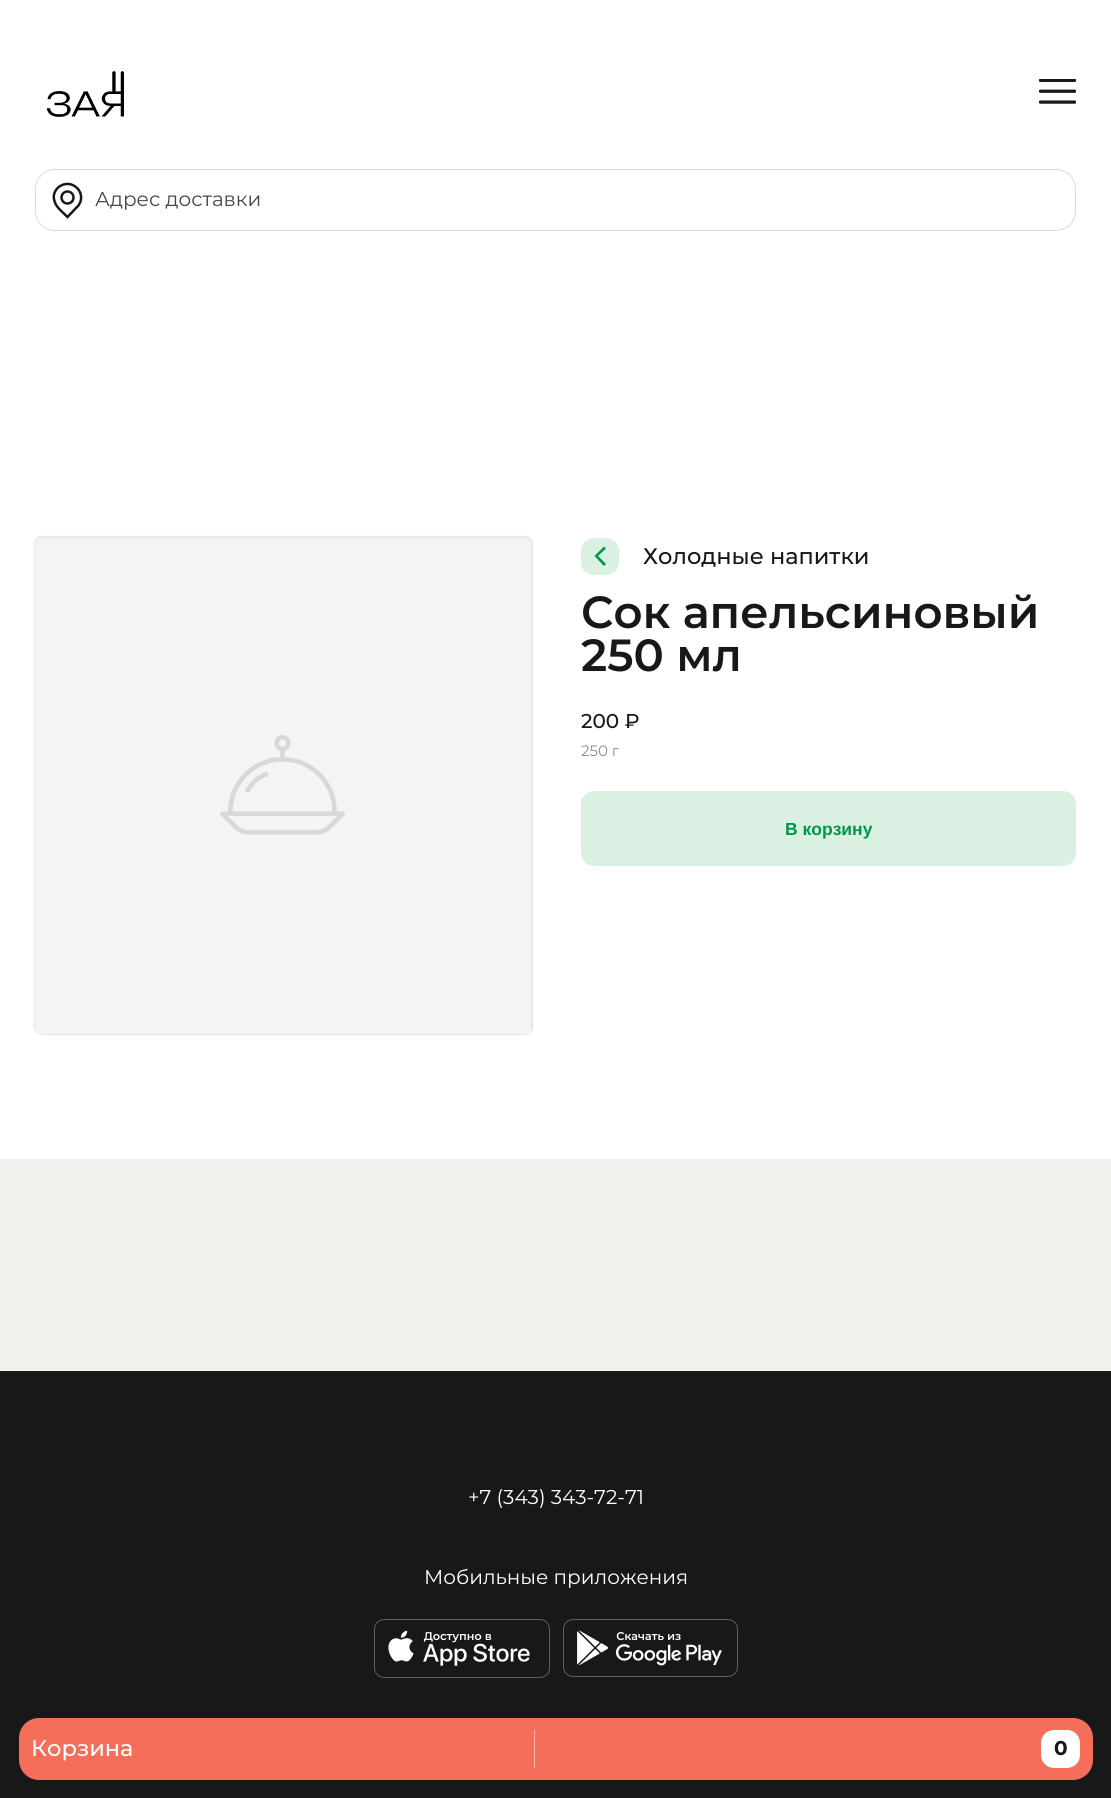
import math
import cairocffi as cairo

surface = cairo.ImageSurface(cairo.FORMAT_RGB24, 1111, 1798)
ctx = cairo.Context(surface)
options = cairo.FontOptions()
options.set_hint_metrics(cairo.HINT_METRICS_OFF)
options.set_hint_style(cairo.HINT_STYLE_NONE)
ctx.set_font_options(options)
ctx.set_miter_limit(4)


def rgb(r, g, b):
    ctx.set_source_rgb(r / 255, g / 255, b / 255)


def face(family, size, italic, bold):
    ctx.select_font_face(family, cairo.FONT_SLANT_ITALIC if italic else cairo.FONT_SLANT_NORMAL, cairo.FONT_WEIGHT_BOLD if bold else cairo.FONT_WEIGHT_NORMAL)
    ctx.set_font_size(size)


def label(x, y, s):
    ctx.move_to(x, y)
    ctx.show_text(s)


def rect(x, y, w, h):
    ctx.rectangle(x, y, w, h)
    ctx.fill()


def rrect(x, y, w, h, r):
    ctx.new_sub_path()
    for i, (u, v) in enumerate([(x + w - r, y + h - r), (x + r, y + h - r), (x + r, y + r), (x + w - r, y + r)]):
        ctx.arc(u, v, r, i * math.pi / 2, (i + 1) * math.pi / 2)
    ctx.close_path()


def soft_shadow(x, y, w, h, r, blur, alpha):
    ctx.push_group_with_content(cairo.CONTENT_ALPHA)
    ctx.set_operator(cairo.OPERATOR_SOURCE)
    for i in range(15, -16, -2):
        e = blur * i / 6
        if min(w, h) + 2 * e > 0:
            ctx.set_source_rgba(0, 0, 0, alpha * math.erfc((i - 1) / 8.5) / 2)
            rrect(x - e, y - e, w + 2 * e, h + 2 * e, max(0, min(r + e + blur * .6, min(w, h) / 2 + e)))
            ctx.fill()
    ctx.mask(ctx.pop_group())


def image(path, x, y, w, h):
    ctx.save()
    ctx.set_source_surface(cairo.ImageSurface.create_from_png(path), x, y)
    ctx.rectangle(x, y, w, h)
    ctx.fill()
    ctx.restore()


rgb(255, 255, 255)
ctx.paint()
image('image0.png', 46, 71, 78, 46)
image('image1.png', 1039, 79, 37, 25)
rrect(35.5, 169.5, 1040, 61, 19.5)
rgb(220, 220, 220)
ctx.set_line_width(1)
ctx.stroke()
ctx.new_path()
ctx.move_to(77, 188)
ctx.curve_to(82.5, 193, 82.5, 202, 77, 207)
ctx.line_to(67.5, 217)
ctx.curve_to(64, 213.5, 56.5, 207.5, 55, 202.5)
ctx.curve_to(49, 189, 66.5, 177.5, 77, 188)
ctx.close_path()
rgb(24, 24, 24)
ctx.set_line_width(2.5)
ctx.stroke()
ctx.arc(67.5, 197.5, 6, 0, 2 * math.pi)
ctx.stroke()
face('Montserrat', 20, 0, 0)
rgb(70, 70, 70)
label(95, 206, 'Адрес доставки')
rgb(24, 24, 24)
rect(0, 1371, 1111, 427)
rgb(245, 110, 90)
rrect(19, 1718, 1074, 62, 20)
ctx.fill()
face('Montserrat Medium', 22.5, 0, 0)
rgb(255, 255, 255)
label(31, 1756, 'Корзина')
rgb(250, 183, 173)
rect(534, 1730, 1, 38)
rgb(255, 255, 255)
rrect(1041, 1730, 39, 38, 13)
ctx.fill()
face('Montserrat', 20, 0, 1)
rgb(24, 24, 24)
label(1054, 1755, '0')
rgb(0, 0, 0)
soft_shadow(34, 536, 499, 499, 8, 0.5, 0.1)
rgb(245, 244, 242)
ctx.new_path()
ctx.move_to(41, 538)
ctx.line_to(525, 538)
ctx.curve_to(528.5, 538, 531, 540.5, 531, 544)
ctx.line_to(531, 1034)
ctx.line_to(35, 1034)
ctx.line_to(35, 544)
ctx.curve_to(35, 540.5, 37.5, 538, 41, 538)
ctx.close_path()
ctx.fill()
image('image2.png', 220, 735, 125, 100)
rgb(217, 240, 227)
rrect(581, 538, 38, 37, 13)
ctx.fill()
rgb(0, 152, 70)
ctx.new_path()
ctx.move_to(604, 546.5)
ctx.line_to(606, 548.5)
ctx.line_to(598, 556)
ctx.line_to(606, 564)
ctx.line_to(604, 566)
ctx.line_to(594.5, 556)
ctx.close_path()
ctx.fill()
face('Montserrat Medium', 22.5, 0, 0)
rgb(24, 24, 24)
label(643, 564, 'Холодные напитки')
face('Montserrat SemiBold', 45, 0, 0)
label(581, 628, 'Сок апельсиновый')
label(581, 671, '250 мл')
face('Montserrat Medium', 20, 0, 0)
label(581, 728, '200 ₽')
face('Montserrat', 15, 0, 0)
rgb(140, 140, 140)
label(581, 756, '250 г')
rgb(217, 240, 227)
rrect(581, 791, 495, 75, 13)
ctx.fill()
face('Liberation Sans', 17.5, 0, 1)
rgb(0, 152, 70)
label(785, 835, 'В корзину')
rgb(241, 240, 236)
rect(0, 1159, 1111, 212)
face('Montserrat', 20, 0, 0)
rgb(255, 255, 255)
label(468, 1504, '+7 (343) 343-72-71')
label(424, 1584, 'Мобильные приложения')
image('image3.png', 374, 1619, 176, 59)
image('image4.png', 563, 1619, 175, 58)
surface.write_to_png('render.png')
